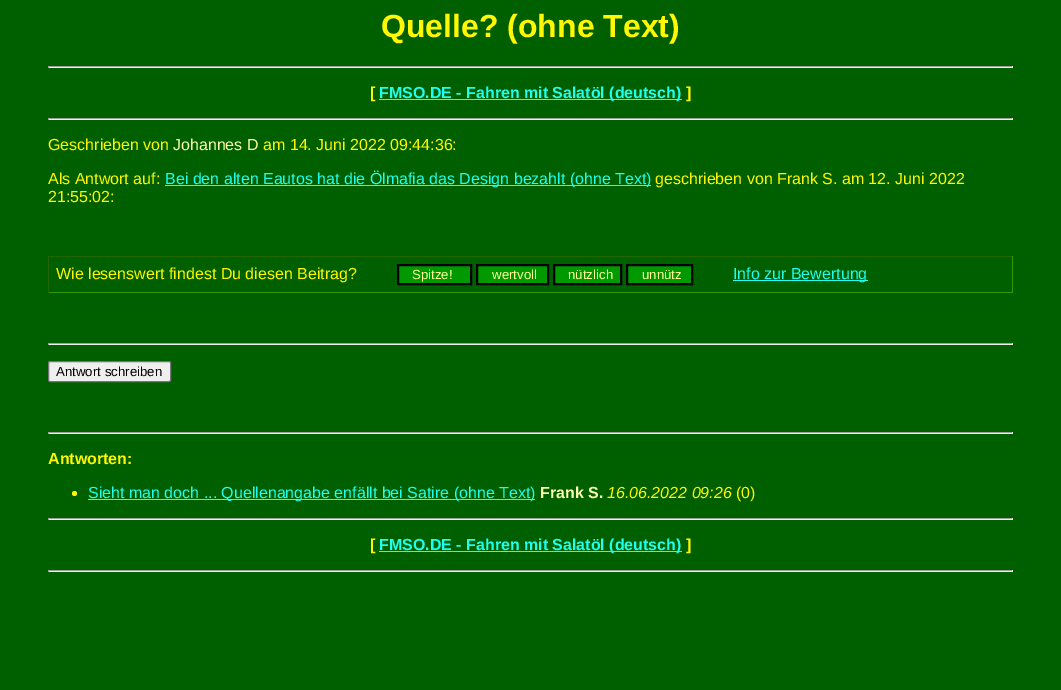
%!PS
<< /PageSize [1061 690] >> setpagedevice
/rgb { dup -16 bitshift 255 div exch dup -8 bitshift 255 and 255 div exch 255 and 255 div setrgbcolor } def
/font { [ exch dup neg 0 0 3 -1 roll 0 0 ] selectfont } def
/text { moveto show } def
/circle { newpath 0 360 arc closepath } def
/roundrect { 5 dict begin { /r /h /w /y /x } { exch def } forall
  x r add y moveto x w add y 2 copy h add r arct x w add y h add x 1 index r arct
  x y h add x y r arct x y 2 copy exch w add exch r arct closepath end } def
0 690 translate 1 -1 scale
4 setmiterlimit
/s1 { /LiberationSans-Bold 32 font 16#FFF800 rgb } def
/s2 { /LiberationSans-Bold 16 font 16#FFF800 rgb } def
/s3 { /LiberationSans-Bold 16 font 16#20FFEF rgb } def
/s4 { /LiberationSans-Regular 16 font 16#FFF800 rgb } def
/s5 { /LiberationSans-Regular 16 font 16#FFFFAA rgb } def
/s6 { /LiberationSans-Regular 16 font 16#20FFEF rgb } def
/s7 { /LiberationSans-Regular 13.25 font 16#FFFF99 rgb } def
/s8 { /LiberationSans-Regular 13.25 font 16#000000 rgb } def
/s9 { /LiberationSans-Bold 16 font 16#FFFFAA rgb } def
/s10 { /LiberationSans-Italic 16 font 16#FFF800 rgb } def
16#006000 rgb
0 0 1061 690 rectfill
s1
(Quelle? \(ohne Text\)) 381 37 text
16#9F9F9F rgb
48 66 965 1 rectfill
16#EEEEEE rgb
1012 66 1 2 rectfill
48 67 965 1 rectfill
16#9F9F9F rgb
48 66 1 2 rectfill
s2
([) 370 98 text
16#20FFEF rgb
379 99 303 1 rectfill
(FMSO.DE - Fahren mit Salatöl \(deutsch\)) 379 98 text
s2
(]) 686 98 text
16#9F9F9F rgb
48 118 965 1 rectfill
16#EEEEEE rgb
1012 118 1 2 rectfill
48 119 965 1 rectfill
16#9F9F9F rgb
48 118 1 2 rectfill
s4
(Geschrieben von) 48 150 text
s5
(Johannes D) 173 150 text
s4
(am 14. Juni 2022 09:44:36:) 263 150 text
(Als Antwort auf:) 48 184 text
16#20FFEF rgb
165 185 486 1 rectfill
(Bei den alten Eautos hat die Ölmafia das Design bezahlt \(ohne Text\)) 165 184 text
s4
(geschrieben von Frank S. am 12. Juni 2022) 655 184 text
(21:55:02:) 48 202 text
16#226600 rgb
48 256 965 1 rectfill
16#339900 rgb
1012 256 1 37 rectfill
48 292 965 1 rectfill
16#226600 rgb
48 256 1 37 rectfill
s4
(Wie lesenswert findest Du diesen Beitrag?) 56 279 text
16#009900 rgb
398 265 moveto 471 265 lineto 471 284 lineto 398 284 lineto closepath gsave fill grestore
16#000000 rgb
2 setlinewidth
stroke
s7
(Spitze!) 412 279 text
16#009900 rgb
477 265 moveto 548 265 lineto 548 284 lineto 477 284 lineto closepath gsave fill grestore
16#000000 rgb
stroke
s7
(wertvoll) 492 279 text
16#009900 rgb
554 265 moveto 621 265 lineto 621 284 lineto 554 284 lineto closepath gsave fill grestore
16#000000 rgb
stroke
s7
(nützlich) 568 279 text
16#009900 rgb
627 265 moveto 692 265 lineto 692 284 lineto 627 284 lineto closepath gsave fill grestore
16#000000 rgb
stroke
s7
(unnütz) 642 279 text
16#20FFEF rgb
733 280 135 1 rectfill
s6
(Info zur Bewertung) 733 279 text
16#9F9F9F rgb
48 343 965 1 rectfill
16#EEEEEE rgb
1012 343 1 2 rectfill
48 344 965 1 rectfill
16#9F9F9F rgb
48 343 1 2 rectfill
16#EFEFEF rgb
48.5 361.5 122 20 1.5 roundrect gsave fill grestore
16#767676 rgb
1 setlinewidth
stroke
s8
(Antwort schreiben) 56 376 text
16#9F9F9F rgb
48 432 965 1 rectfill
16#EEEEEE rgb
1012 432 1 2 rectfill
48 433 965 1 rectfill
16#9F9F9F rgb
48 432 1 2 rectfill
s2
(Antworten:) 48 464 text
74.5 493.5 2.5 circle fill
16#20FFEF rgb
88 499 447 1 rectfill
s6
(Sieht man doch ... Quellenangabe enfällt bei Satire \(ohne Text\)) 88 498 text
s9
(Frank S.) 540 498 text
s10
(16.06.2022 09:26) 607 498 text
s4
(\(0\)) 736 498 text
16#9F9F9F rgb
48 518 965 1 rectfill
16#EEEEEE rgb
1012 518 1 2 rectfill
48 519 965 1 rectfill
16#9F9F9F rgb
48 518 1 2 rectfill
s2
([) 370 550 text
16#20FFEF rgb
379 551 303 1 rectfill
(FMSO.DE - Fahren mit Salatöl \(deutsch\)) 379 550 text
s2
(]) 686 550 text
16#9F9F9F rgb
48 570 965 1 rectfill
16#EEEEEE rgb
1012 570 1 2 rectfill
48 571 965 1 rectfill
16#9F9F9F rgb
48 570 1 2 rectfill
showpage
